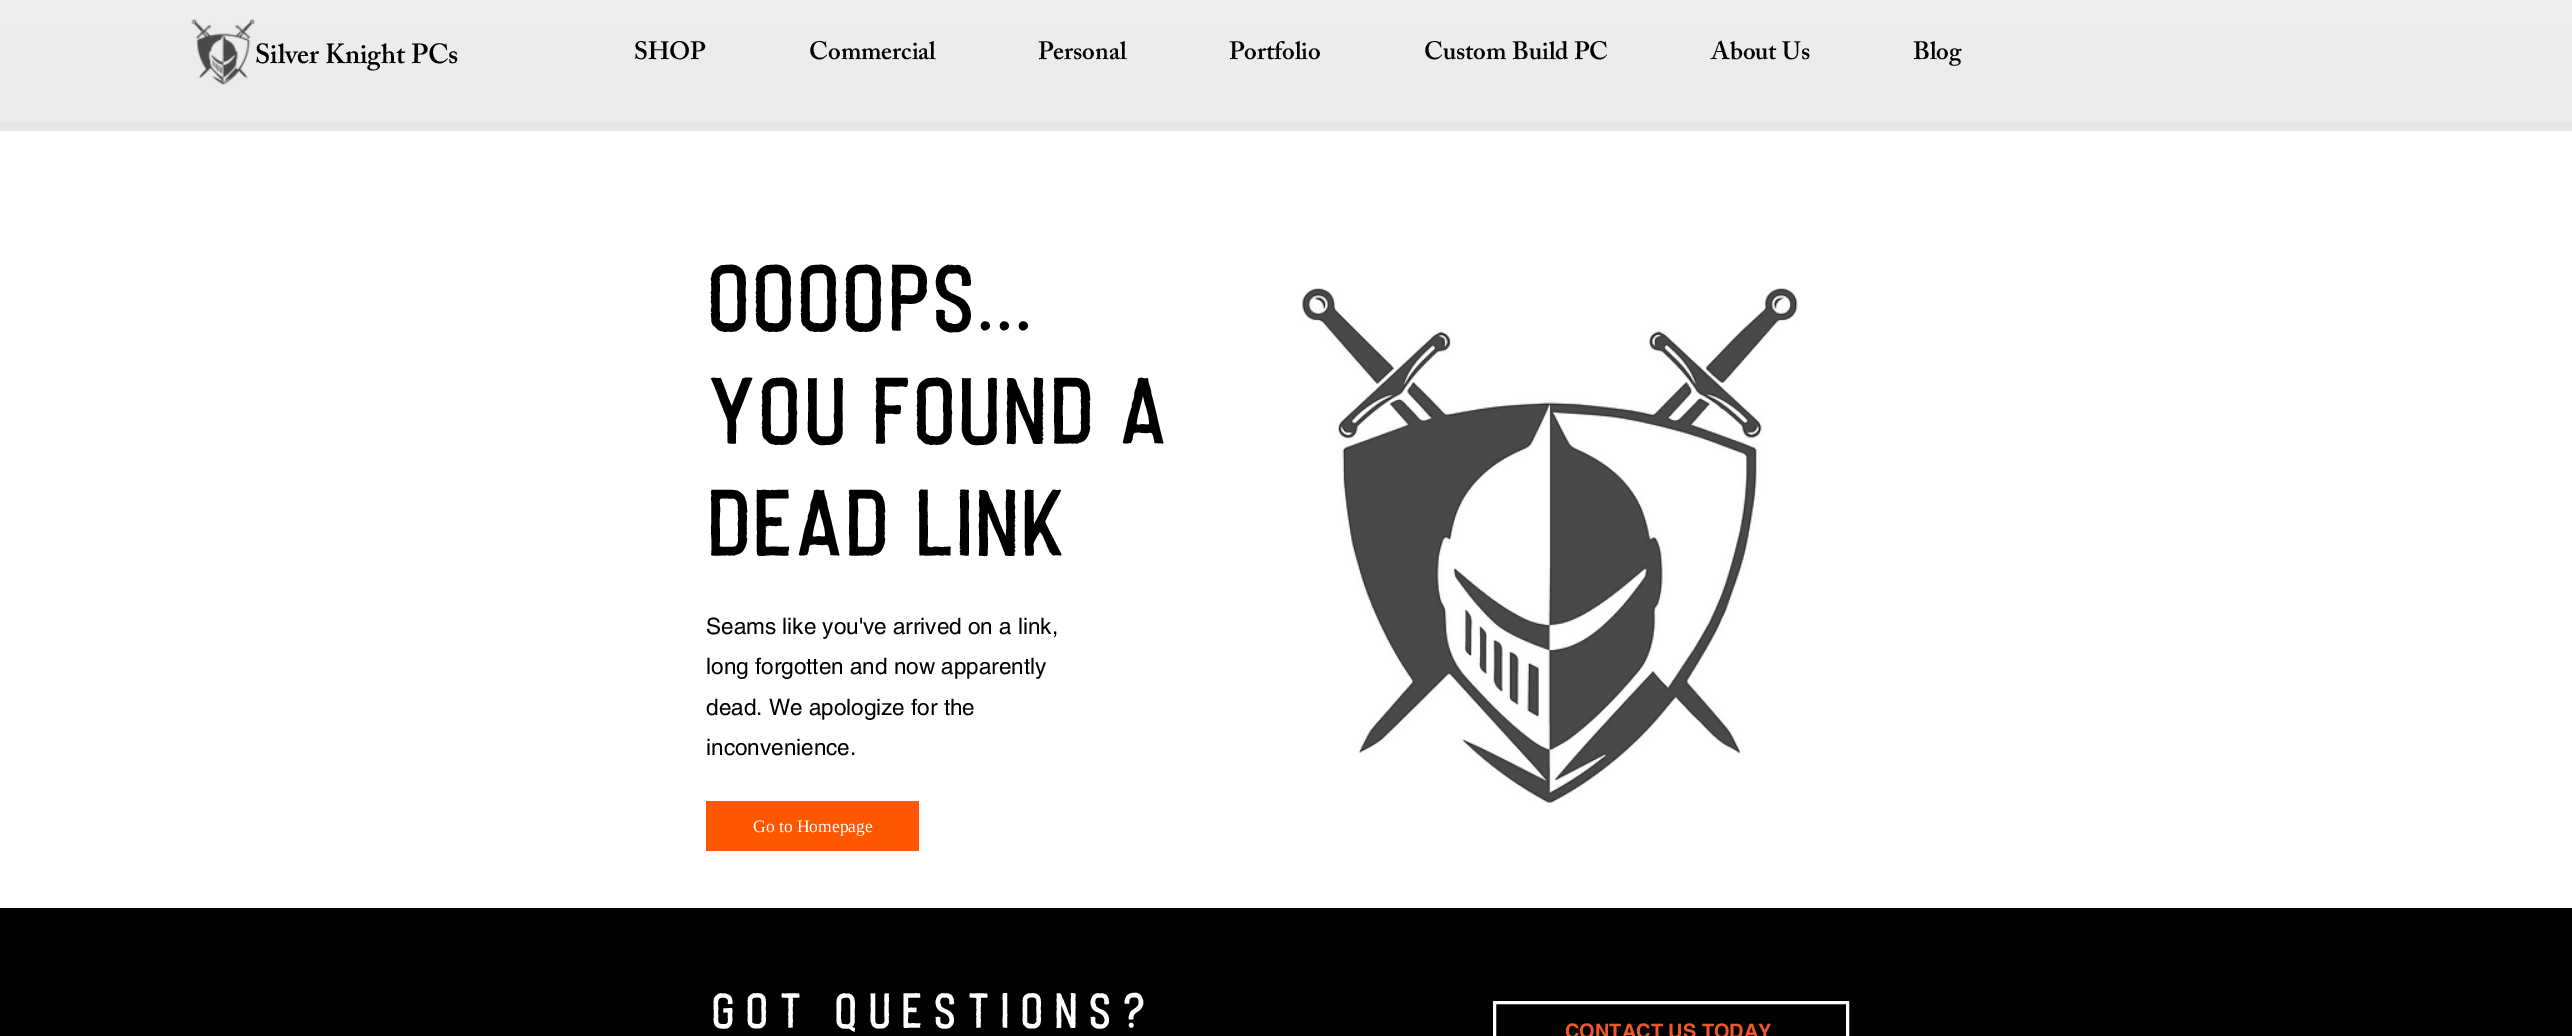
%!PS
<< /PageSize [2572 1036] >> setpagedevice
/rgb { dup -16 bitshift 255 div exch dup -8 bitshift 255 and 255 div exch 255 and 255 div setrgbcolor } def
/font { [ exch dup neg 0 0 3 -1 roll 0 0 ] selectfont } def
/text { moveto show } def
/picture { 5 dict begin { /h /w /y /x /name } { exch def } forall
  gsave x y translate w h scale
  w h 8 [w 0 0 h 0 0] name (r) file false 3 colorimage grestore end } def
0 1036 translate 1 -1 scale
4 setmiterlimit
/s1 { /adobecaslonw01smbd-SemiBold 27.5 font 16#000000 rgb } def
/s2 { /adobecaslonw01smbd-SemiBold 25 font 16#000000 rgb } def
/s3 { /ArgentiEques-Regular 95 font 16#000000 rgb } def
/s4 { /helvetica-Regular 22.5 font 16#000000 rgb } def
/s5 { /LiberationSerif-Regular 17.5 font 16#FFFFFF rgb } def
/s6 { /helvetica-Bold 20 font 16#ED5829 rgb } def
16#FFFFFF rgb
0 0 2572 1036 rectfill
16#E8E6E6 rgb
0 0 2572 131 rectfill
(pic1.raw) 0 0 2572 122 picture
(pic2.raw) 191 18 64 67 picture
s1
(Silver Knight PCs) 255 63 text
s2
(SHOP) 634 59 text
(Commercial) 809 59 text
(Personal) 1038 59 text
(Portfolio) 1229 59 text
(Custom Build PC) 1424 59 text
(About Us) 1711 59 text
(Blog) 1913 59 text
s3
(Oooops...) 706 331 text
(You Found A) 706 444 text
(Dead Link) 706 556 text
(pic3.raw) 1302 288 496 515 picture
s4
(Seams like you've arrived on a link,) 706 634 text
(long forgotten and now apparently) 706 674 text
(dead. We apologize for the) 706 715 text
(inconvenience.) 706 755 text
16#FF5700 rgb
706 801 213 50 rectfill
s5
(Go to Homepage) 753 832 text
16#000000 rgb
0 908 2572 128 rectfill
/ArgentiEques-Regular 50 font
16#FFFFFF rgb
711 1028 moveto 10 0 (GOT QUESTIONS?) ashow
3 setlinewidth
1494.5 1002.5 353 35 rectstroke
s6
(CONTACT US TODAY) 1565 1038 text
showpage
